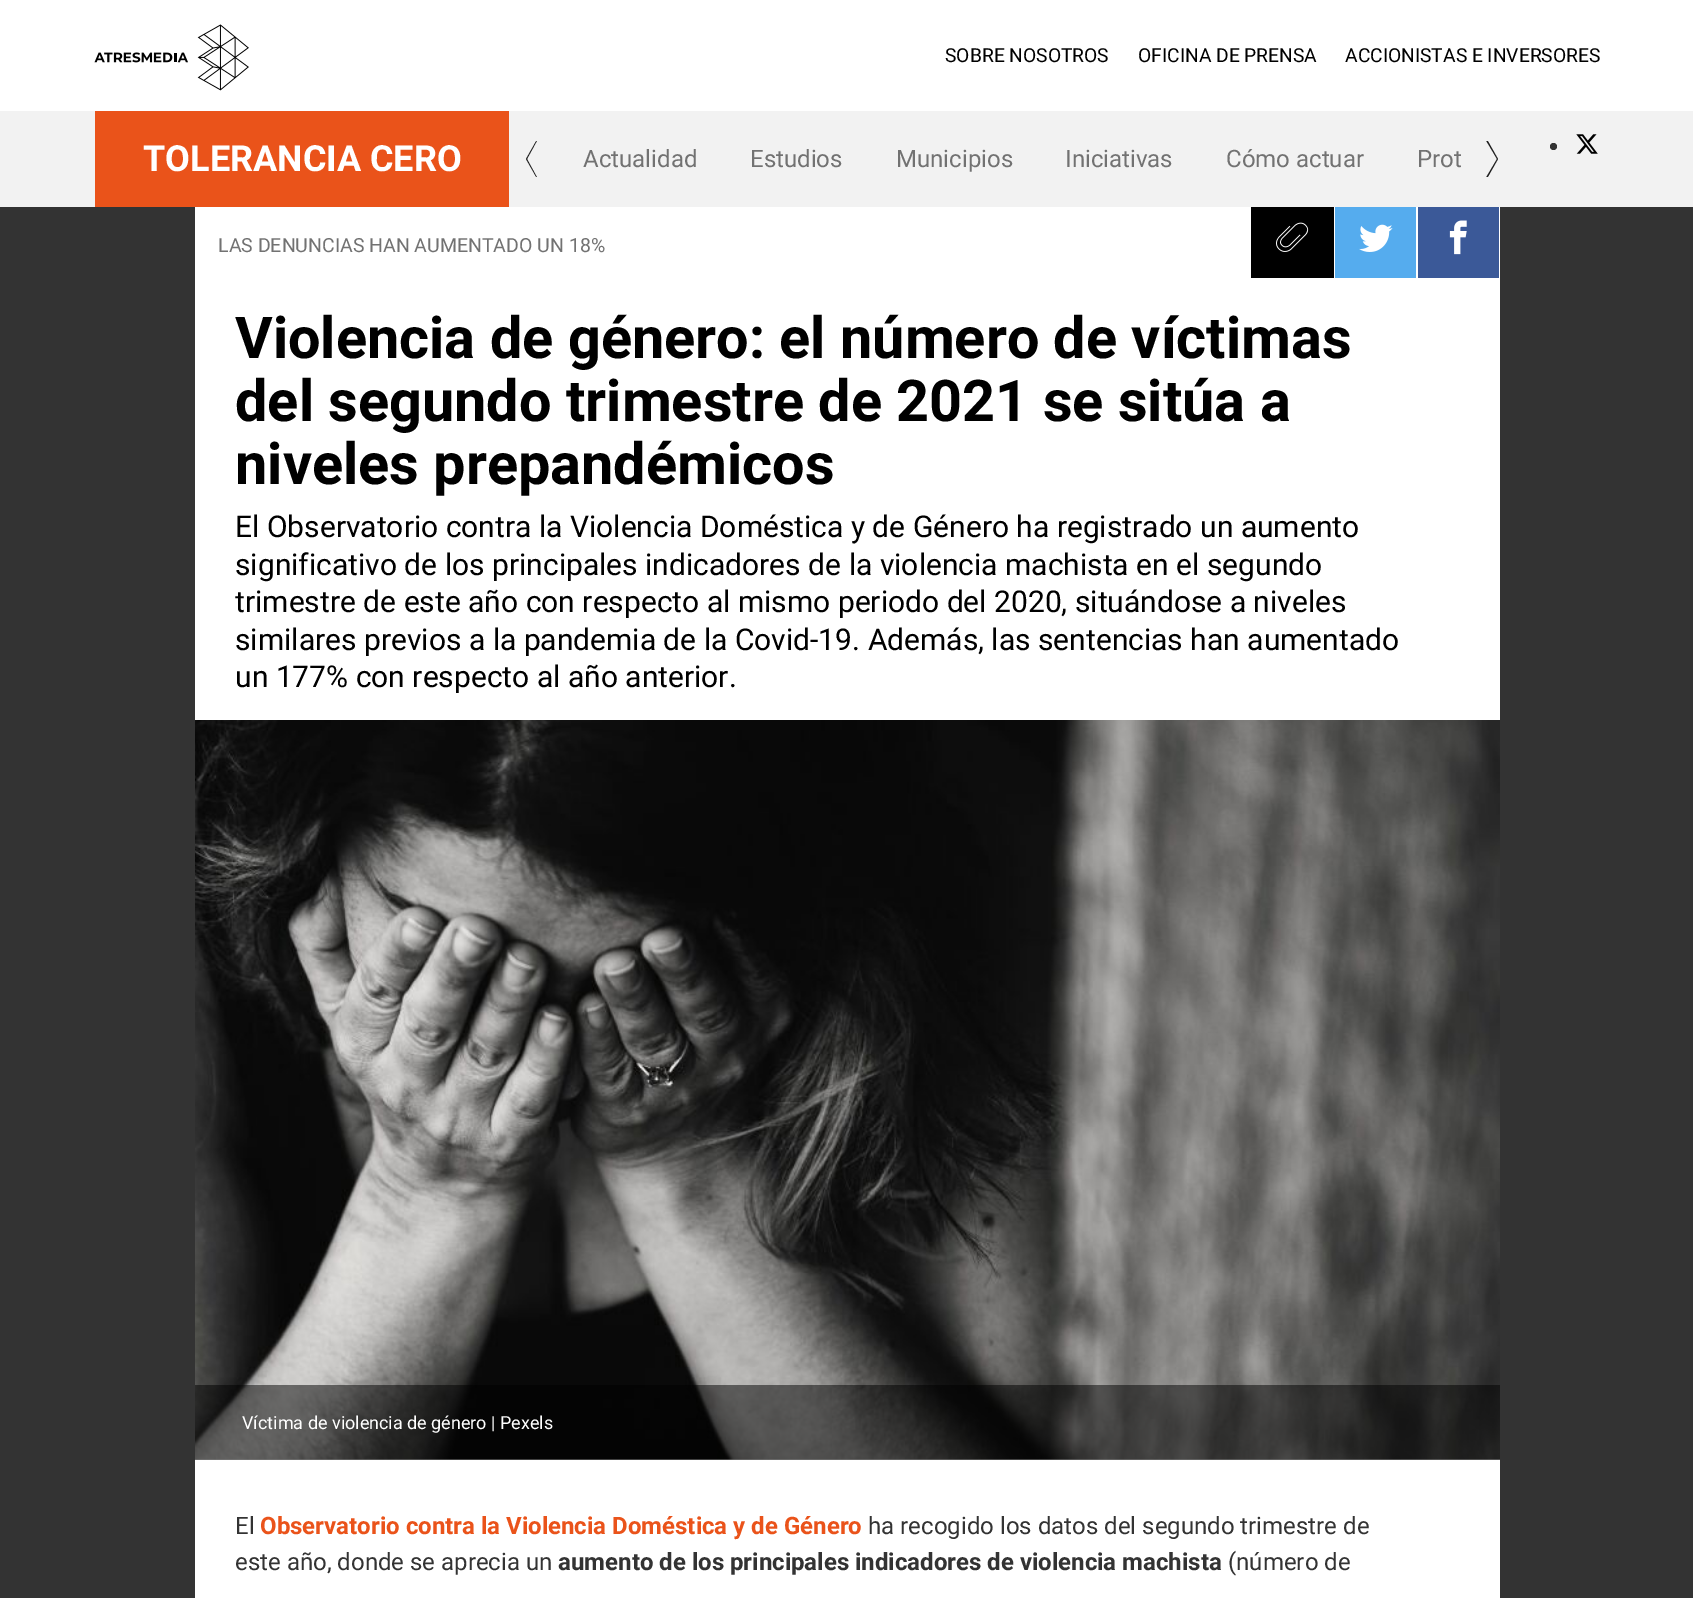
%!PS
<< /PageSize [1693 1598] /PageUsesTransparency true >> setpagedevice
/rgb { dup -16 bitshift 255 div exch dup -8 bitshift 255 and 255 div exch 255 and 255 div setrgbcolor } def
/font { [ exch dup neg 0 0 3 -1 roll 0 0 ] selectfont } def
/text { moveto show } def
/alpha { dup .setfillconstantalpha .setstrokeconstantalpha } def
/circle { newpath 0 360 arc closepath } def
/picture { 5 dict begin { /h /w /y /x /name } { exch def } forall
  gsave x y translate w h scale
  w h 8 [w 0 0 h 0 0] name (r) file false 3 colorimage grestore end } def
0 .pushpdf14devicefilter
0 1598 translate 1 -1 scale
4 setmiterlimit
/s1 { /Roboto-Regular 19.25 font 16#000000 rgb } def
/s2 { /Roboto-Bold 36 font 16#FFFFFF rgb } def
/s3 { /Roboto-Regular 24 font 16#727272 rgb } def
/s4 { /Roboto-Regular 19.5 font 16#727272 rgb } def
/s5 { /Roboto-Bold 57.6 font 16#000000 rgb } def
/s6 { /Roboto-Regular 30 font 16#000000 rgb } def
/s7 { /Roboto-Regular 18 font 16#FFFFFF rgb } def
/s8 { /Roboto-Regular 24 font 16#333333 rgb } def
/s9 { /Roboto-Bold 24 font 16#EA531A rgb } def
/s10 { /Roboto-Bold 24 font 16#333333 rgb } def
16#333333 rgb
0 0 1693 1598 rectfill
16#FFFFFF rgb
0 0 1693 111 rectfill
(pic1.raw) 94 24 155 67 picture
s1
(SOBRE NOSOTROS) 945 62 text
(OFICINA DE PRENSA) 1138 62 text
(ACCIONISTAS E INVERSORES) 1345 62 text
16#F2F2F2 rgb
0 111 1693 96 rectfill
16#EA531A rgb
95 111 414 96 rectfill
s2
(TOLERANCIA CERO) 143 171 text
gsave
509 141 1006 36 rectclip
16#1F1F1F rgb
539 136 moveto 539 137 lineto 527 159 lineto 539 181 lineto 539 182 lineto 526 159 lineto closepath fill
grestore
s3
(Actualidad) 583 167 text
(Estudios) 750 167 text
(Municipios) 896 167 text
(Iniciativas) 1065 167 text
(Cómo actuar) 1226 167 text
(Prot) 1417 167 text
gsave
509 141 1006 36 rectclip
16#1F1F1F rgb
1485 182 moveto 1484 181 lineto 1497 159 lineto 1484 137 lineto 1485 136 lineto 1498 159 lineto closepath fill
grestore
16#333333 rgb
1553.5 146.5 3.5 circle fill
(pic2.raw) 1576 134 22 20 picture
16#FFFFFF rgb
195 207 1305 1391 rectfill
s4
(LAS DENUNCIAS HAN AUMENTADO UN 18%) 218 252 text
16#000000 rgb
1251 207 83 71 rectfill
(pic3.raw) 1276 222 33 30 picture
16#55ACEE rgb
1335 207 81 71 rectfill
(pic4.raw) 1359 224 34 28 picture
16#3B5998 rgb
1418 207 81 71 rectfill
(pic5.raw) 1449 220 18 35 picture
s5
(Violencia de género: el número de víctimas) 235 358 text
(del segundo trimestre de 2021 se sitúa a) 235 421 text
(niveles prepandémicos) 235 484 text
s6
(El Observatorio contra la Violencia Doméstica y de Género ha registrado un aumento) 235 537 text
(significativo de los principales indicadores de la violencia machista en el segundo) 235 575 text
(trimestre de este año con respecto al mismo periodo del 2020, situándose a niveles) 235 612 text
(similares previos a la pandemia de la Covid-19. Además, las sentencias han aumentado) 235 650 text
(un 177% con respecto al año anterior.) 235 687 text
(pic6.raw) 195 720 1305 740 picture
0.5 alpha
195 1385 1305 75 rectfill
1 alpha
s7
(Víctima de violencia de género | Pexels) 242 1429 text
s8
(El) 235 1534 text
s9
(Observatorio contra la Violencia Doméstica y de Género) 260 1534 text
s8
(ha recogido los datos del segundo trimestre de) 868 1534 text
(este año, donde se aprecia un) 235 1570 text
s10
(aumento de los principales indicadores de violencia machista) 558 1570 text
s8
(\(número de) 1228 1570 text
.poppdf14devicefilter showpage
